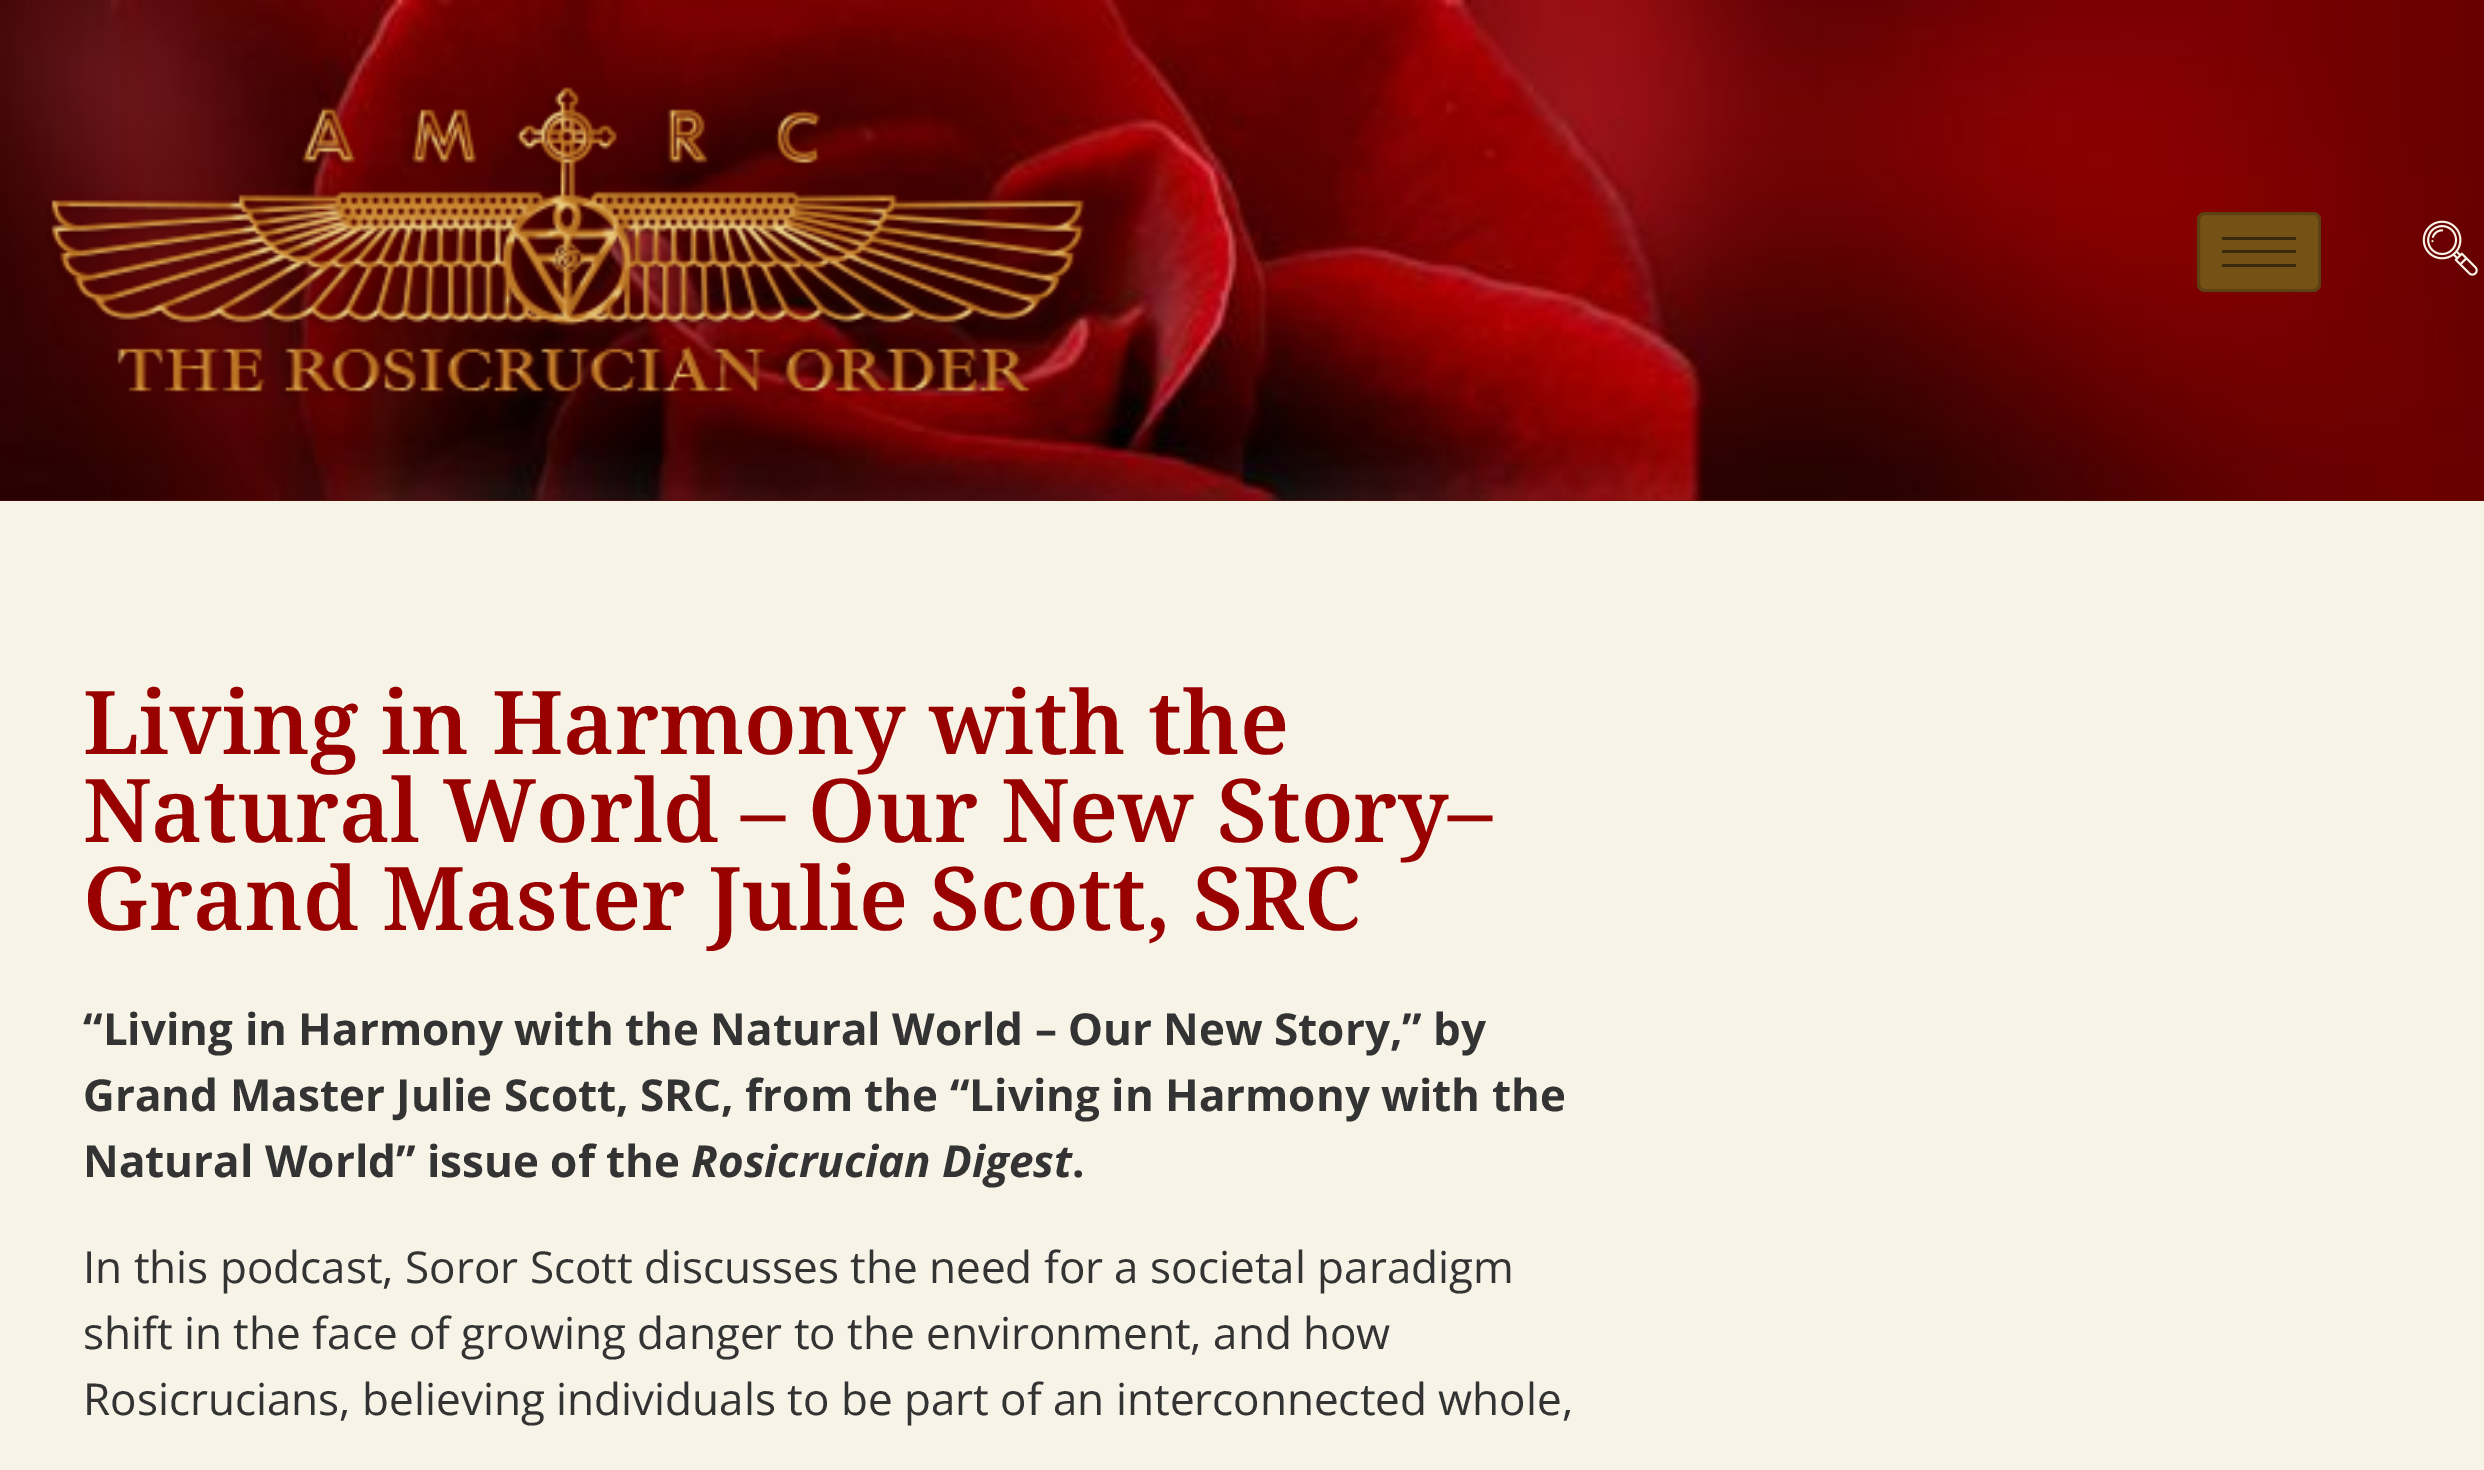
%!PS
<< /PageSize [2484 1470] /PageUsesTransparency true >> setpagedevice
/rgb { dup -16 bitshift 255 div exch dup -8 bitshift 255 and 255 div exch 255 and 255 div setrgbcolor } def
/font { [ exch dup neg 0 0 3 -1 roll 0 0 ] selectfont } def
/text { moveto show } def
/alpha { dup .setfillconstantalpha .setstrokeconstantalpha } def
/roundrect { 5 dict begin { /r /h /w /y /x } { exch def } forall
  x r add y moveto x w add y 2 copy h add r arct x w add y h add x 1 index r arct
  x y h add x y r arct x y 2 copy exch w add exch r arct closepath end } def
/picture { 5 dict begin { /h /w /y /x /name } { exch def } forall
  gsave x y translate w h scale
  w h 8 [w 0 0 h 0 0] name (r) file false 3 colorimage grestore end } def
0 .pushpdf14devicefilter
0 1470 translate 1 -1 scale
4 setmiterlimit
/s1 { /NotoSerif-SemiBold 88 font 16#990000 rgb } def
/s2 { /OpenSans-Bold 44 font 16#333333 rgb } def
/s3 { /OpenSans-BoldItalic 44 font 16#333333 rgb } def
/s4 { /OpenSans-Regular 44 font 16#333333 rgb } def
16#F8F3E7 rgb
0 0 2484 1470 rectfill
16#601209 rgb
0 500 2484 1 rectfill
(pic1.raw) 0 0 2484 501 picture
(pic2.raw) 46 87 1041 312 picture
16#755116 rgb
2197 212 124 80 8 roundrect fill
0.2 alpha
16#000000 rgb
3 setlinewidth
2198.5 213.5 121 77 6.5 roundrect stroke
1 alpha
16#3B290B rgb
2222 237 74 3 rectfill
2222 250 74 3 rectfill
2222 264 74 3 rectfill
(pic3.raw) 2422 220 56 56 picture
s1
(Living in Harmony with the) 83 754 text
(Natural World – Our New Story–) 83 842 text
(Grand Master Julie Scott, SRC) 83 930 text
s2
(“Living in Harmony with the Natural World – Our New Story,” by) 83 1045 text
(Grand Master Julie Scott, SRC, from the “Living in Harmony with the) 83 1111 text
(Natural World” issue of the) 83 1177 text
s3
(Rosicrucian Digest) 691 1177 text
s2
(.) 1072 1177 text
s4
(In this podcast, Soror Scott discusses the need for a societal paradigm) 83 1283 text
(shift in the face of growing danger to the environment, and how) 83 1349 text
(Rosicrucians, believing individuals to be part of an interconnected whole,) 83 1415 text
.poppdf14devicefilter showpage
